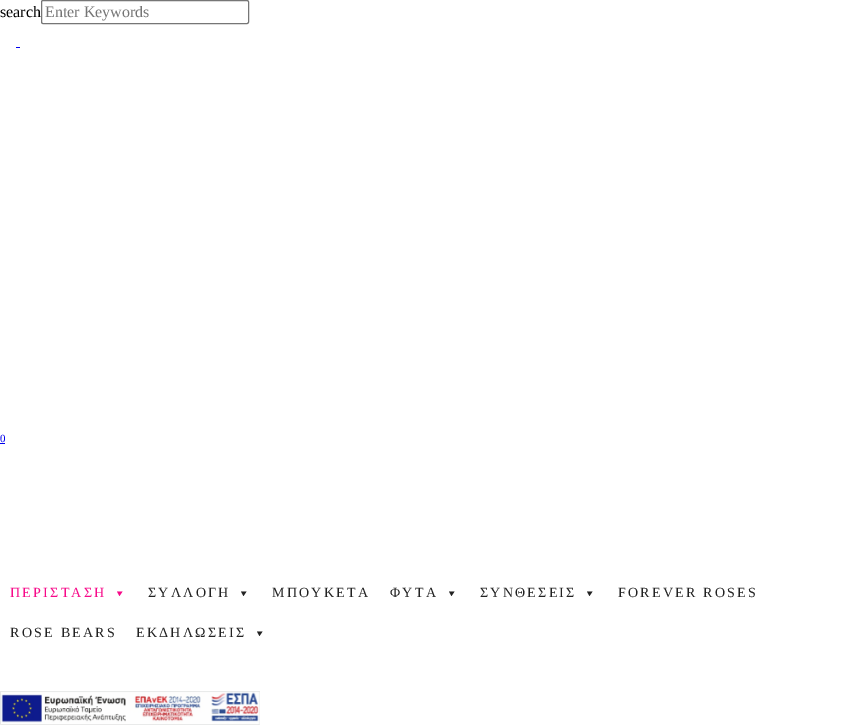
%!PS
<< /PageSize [849 725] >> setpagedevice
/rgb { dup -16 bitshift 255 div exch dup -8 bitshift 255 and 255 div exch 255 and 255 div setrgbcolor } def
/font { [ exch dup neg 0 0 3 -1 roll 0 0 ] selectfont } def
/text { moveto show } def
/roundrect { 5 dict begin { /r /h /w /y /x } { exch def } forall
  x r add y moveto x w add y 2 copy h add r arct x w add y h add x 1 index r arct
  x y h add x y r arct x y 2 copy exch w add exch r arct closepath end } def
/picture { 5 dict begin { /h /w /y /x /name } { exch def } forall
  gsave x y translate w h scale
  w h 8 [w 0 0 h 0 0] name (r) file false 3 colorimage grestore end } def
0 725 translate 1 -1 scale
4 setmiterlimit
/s1 { /LiberationSerif-Regular 16 font 16#000000 rgb } def
/s2 { /LiberationSerif-Regular 16 font 16#757575 rgb } def
/s3 { /LiberationSerif-Regular 11 font 16#0000EE rgb } def
16#FFFFFF rgb
0 0 849 725 rectfill
s1
(search) 0 17 text
16#767676 rgb
41.5 0.5 207 23 1.5 roundrect stroke
s2
(Enter Keywords) 45 17 text
16#0000EE rgb
16 47 4 1 rectfill
s3
(0) 0 442 text
0 443 5 1 rectfill
/LiberationSerif-Regular 14 font
16#F70989 rgb
10 597 moveto 2.25 0 (ΠΕΡΙΣΤΑΣΗ) ashow
122.5 591.5 moveto 119.5 596 lineto 117 591.5 lineto closepath fill
16#222222 rgb
148 597 moveto 2.25 0 (ΣΥΛΛΟΓΗ) ashow
246.5 591.5 moveto 243.5 596 lineto 241 591.5 lineto closepath fill
272 597 moveto 2.25 0 (ΜΠΟΥΚΕΤΑ) ashow
390 597 moveto 2.25 0 (ΦΥΤΑ) ashow
454.5 591.5 moveto 451.5 596 lineto 449 591.5 lineto closepath fill
480 597 moveto 2.25 0 (ΣΥΝΘΕΣΕΙΣ) ashow
592.5 591.5 moveto 589.5 596 lineto 587 591.5 lineto closepath fill
618 597 moveto 2.25 0 (FOREVER ROSES) ashow
10 637 moveto 2.25 0 (ROSE BEARS) ashow
136 637 moveto 2.25 0 (ΕΚΔΗΛΩΣΕΙΣ) ashow
262.5 631.5 moveto 259.5 636 lineto 257 631.5 lineto closepath fill
(pic1.raw) 0 691 260 34 picture
showpage
